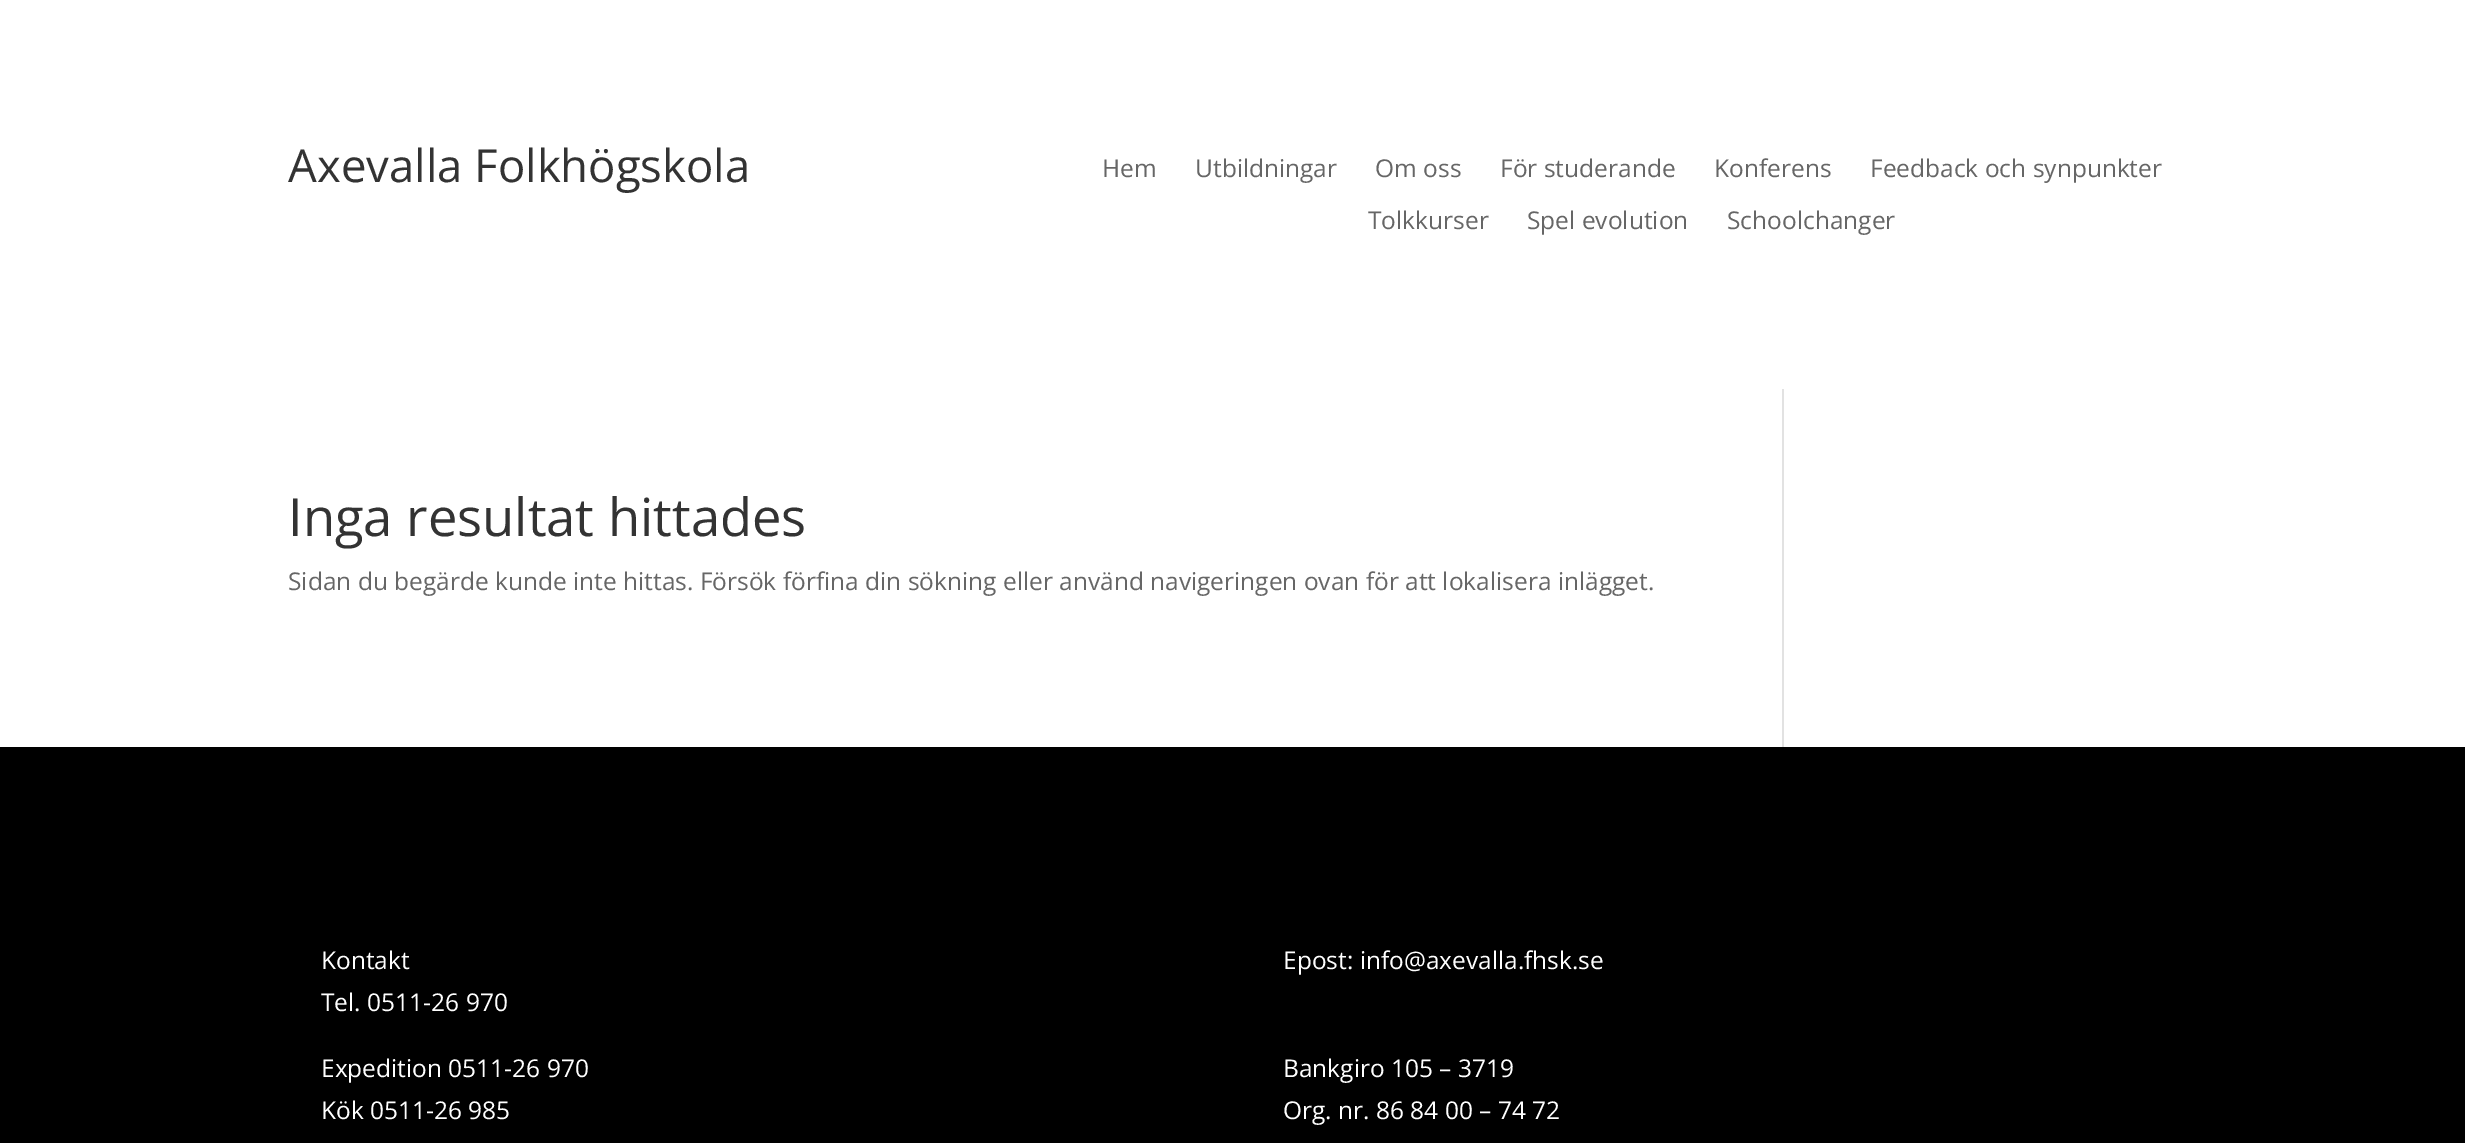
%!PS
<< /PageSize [2465 1143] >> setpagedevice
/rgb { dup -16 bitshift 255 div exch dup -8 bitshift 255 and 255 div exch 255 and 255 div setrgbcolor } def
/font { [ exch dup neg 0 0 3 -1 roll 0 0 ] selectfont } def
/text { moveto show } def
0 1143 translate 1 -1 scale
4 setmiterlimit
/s1 { /OpenSans-Regular 45.5 font 16#333333 rgb } def
/s2 { /OpenSans-Regular 24.5 font 16#666666 rgb } def
/s3 { /OpenSans-Regular 52.5 font 16#333333 rgb } def
/s4 { /OpenSans-Regular 24.5 font 16#FFFFFF rgb } def
16#FFFFFF rgb
0 0 2465 1143 rectfill
s1
(Axevalla Folkhögskola) 288 182 text
s2
(Hem) 1102 177 text
(Utbildningar) 1195 177 text
(Om oss) 1375 177 text
(För studerande) 1500 177 text
(Konferens) 1714 177 text
(Feedback och synpunkter) 1870 177 text
(Tolkkurser) 1368 229 text
(Spel evolution) 1527 229 text
(Schoolchanger) 1727 229 text
s3
(Inga resultat hittades) 288 536 text
s2
(Sidan du begärde kunde inte hittas. Försök förfina din sökning eller använd navigeringen ovan för att lokalisera inlägget.) 288 590 text
16#E2E2E2 rgb
1782 389 2 358 rectfill
16#000000 rgb
0 747 2465 396 rectfill
s4
(Kontakt) 321 969 text
(Tel. 0511-26 970) 321 1011 text
(Expedition 0511-26 970) 321 1077 text
(Kök 0511-26 985) 321 1119 text
(Epost: info@axevalla.fhsk.se) 1283 969 text
(Bankgiro 105 – 3719) 1283 1077 text
(Org. nr. 86 84 00 – 74 72) 1283 1119 text
showpage
